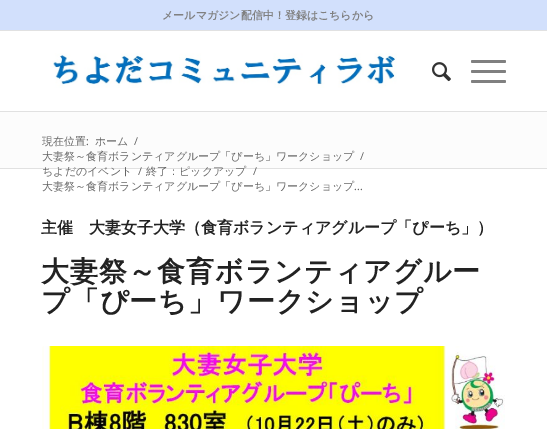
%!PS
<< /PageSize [547 429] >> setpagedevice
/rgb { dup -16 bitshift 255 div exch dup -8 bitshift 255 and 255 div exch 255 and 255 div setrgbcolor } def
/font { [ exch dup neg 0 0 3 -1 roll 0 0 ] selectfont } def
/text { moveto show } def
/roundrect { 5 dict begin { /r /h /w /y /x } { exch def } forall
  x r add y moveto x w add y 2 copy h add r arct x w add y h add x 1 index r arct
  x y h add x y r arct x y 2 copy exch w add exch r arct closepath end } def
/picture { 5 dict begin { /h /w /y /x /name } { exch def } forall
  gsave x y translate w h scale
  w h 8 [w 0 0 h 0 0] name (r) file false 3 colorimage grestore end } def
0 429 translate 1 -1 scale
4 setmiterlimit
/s1 { /WenQuanYiZenHei-Bold 11 font 16#808080 rgb } def
/s2 { /WenQuanYiZenHei-Medium 11 font 16#666666 rgb } def
/s3 { /OpenSans-Regular 11 font 16#666666 rgb } def
/s4 { /WenQuanYiZenHei-Bold 16 font 16#222222 rgb } def
16#FFFFFF rgb
0 0 547 429 rectfill
16#D2E0FC rgb
0 0 547 30 rectfill
16#E1E1E1 rgb
0 30 547 1 rectfill
s1
(メールマガジン配信中！登録はこちらから) 162 19 text
16#E1E1E1 rgb
0 111 547 1 rectfill
(pic1.raw) 50 53 347 35 picture
(pic2.raw) 432 62 19 20 picture
16#808080 rgb
471 70 35 3 1.5 roundrect fill
471 60 35 3 1.5 roundrect fill
471 80 35 3 1.5 roundrect fill
16#FCFCFC rgb
0 112 547 56 rectfill
s2
(現在位置) 42 145 text
s3
(:) 86 145 text
s2
(ホーム) 95 145 text
s3
(/) 134 145 text
s2
(大妻祭～食育ボランティアグループ「ぴーち」ワークショップ) 42 160 text
s3
(/) 360 160 text
16#E1E1E1 rgb
0 168 547 1 rectfill
s2
(ちよだのイベント) 42 175 text
s3
(/) 138 175 text
s2
(終了：ピックアップ) 146 175 text
s3
(/) 253 175 text
s2
(大妻祭～食育ボランティアグループ「ぴーち」ワークショップ) 42 190 text
s3
(...) 354 190 text
s4
(主催　大妻女子大学（食育ボランティアグループ「ぴーち」）) 41 233 text
/WenQuanYiZenHei-Bold 28 font
41 281 moveto 1 0 (大妻祭～食育ボランティアグルー) ashow
41 311 moveto 1 0 (プ「ぴーち」ワークショップ) ashow
(pic3.raw) 42 346 463 83 picture
showpage
